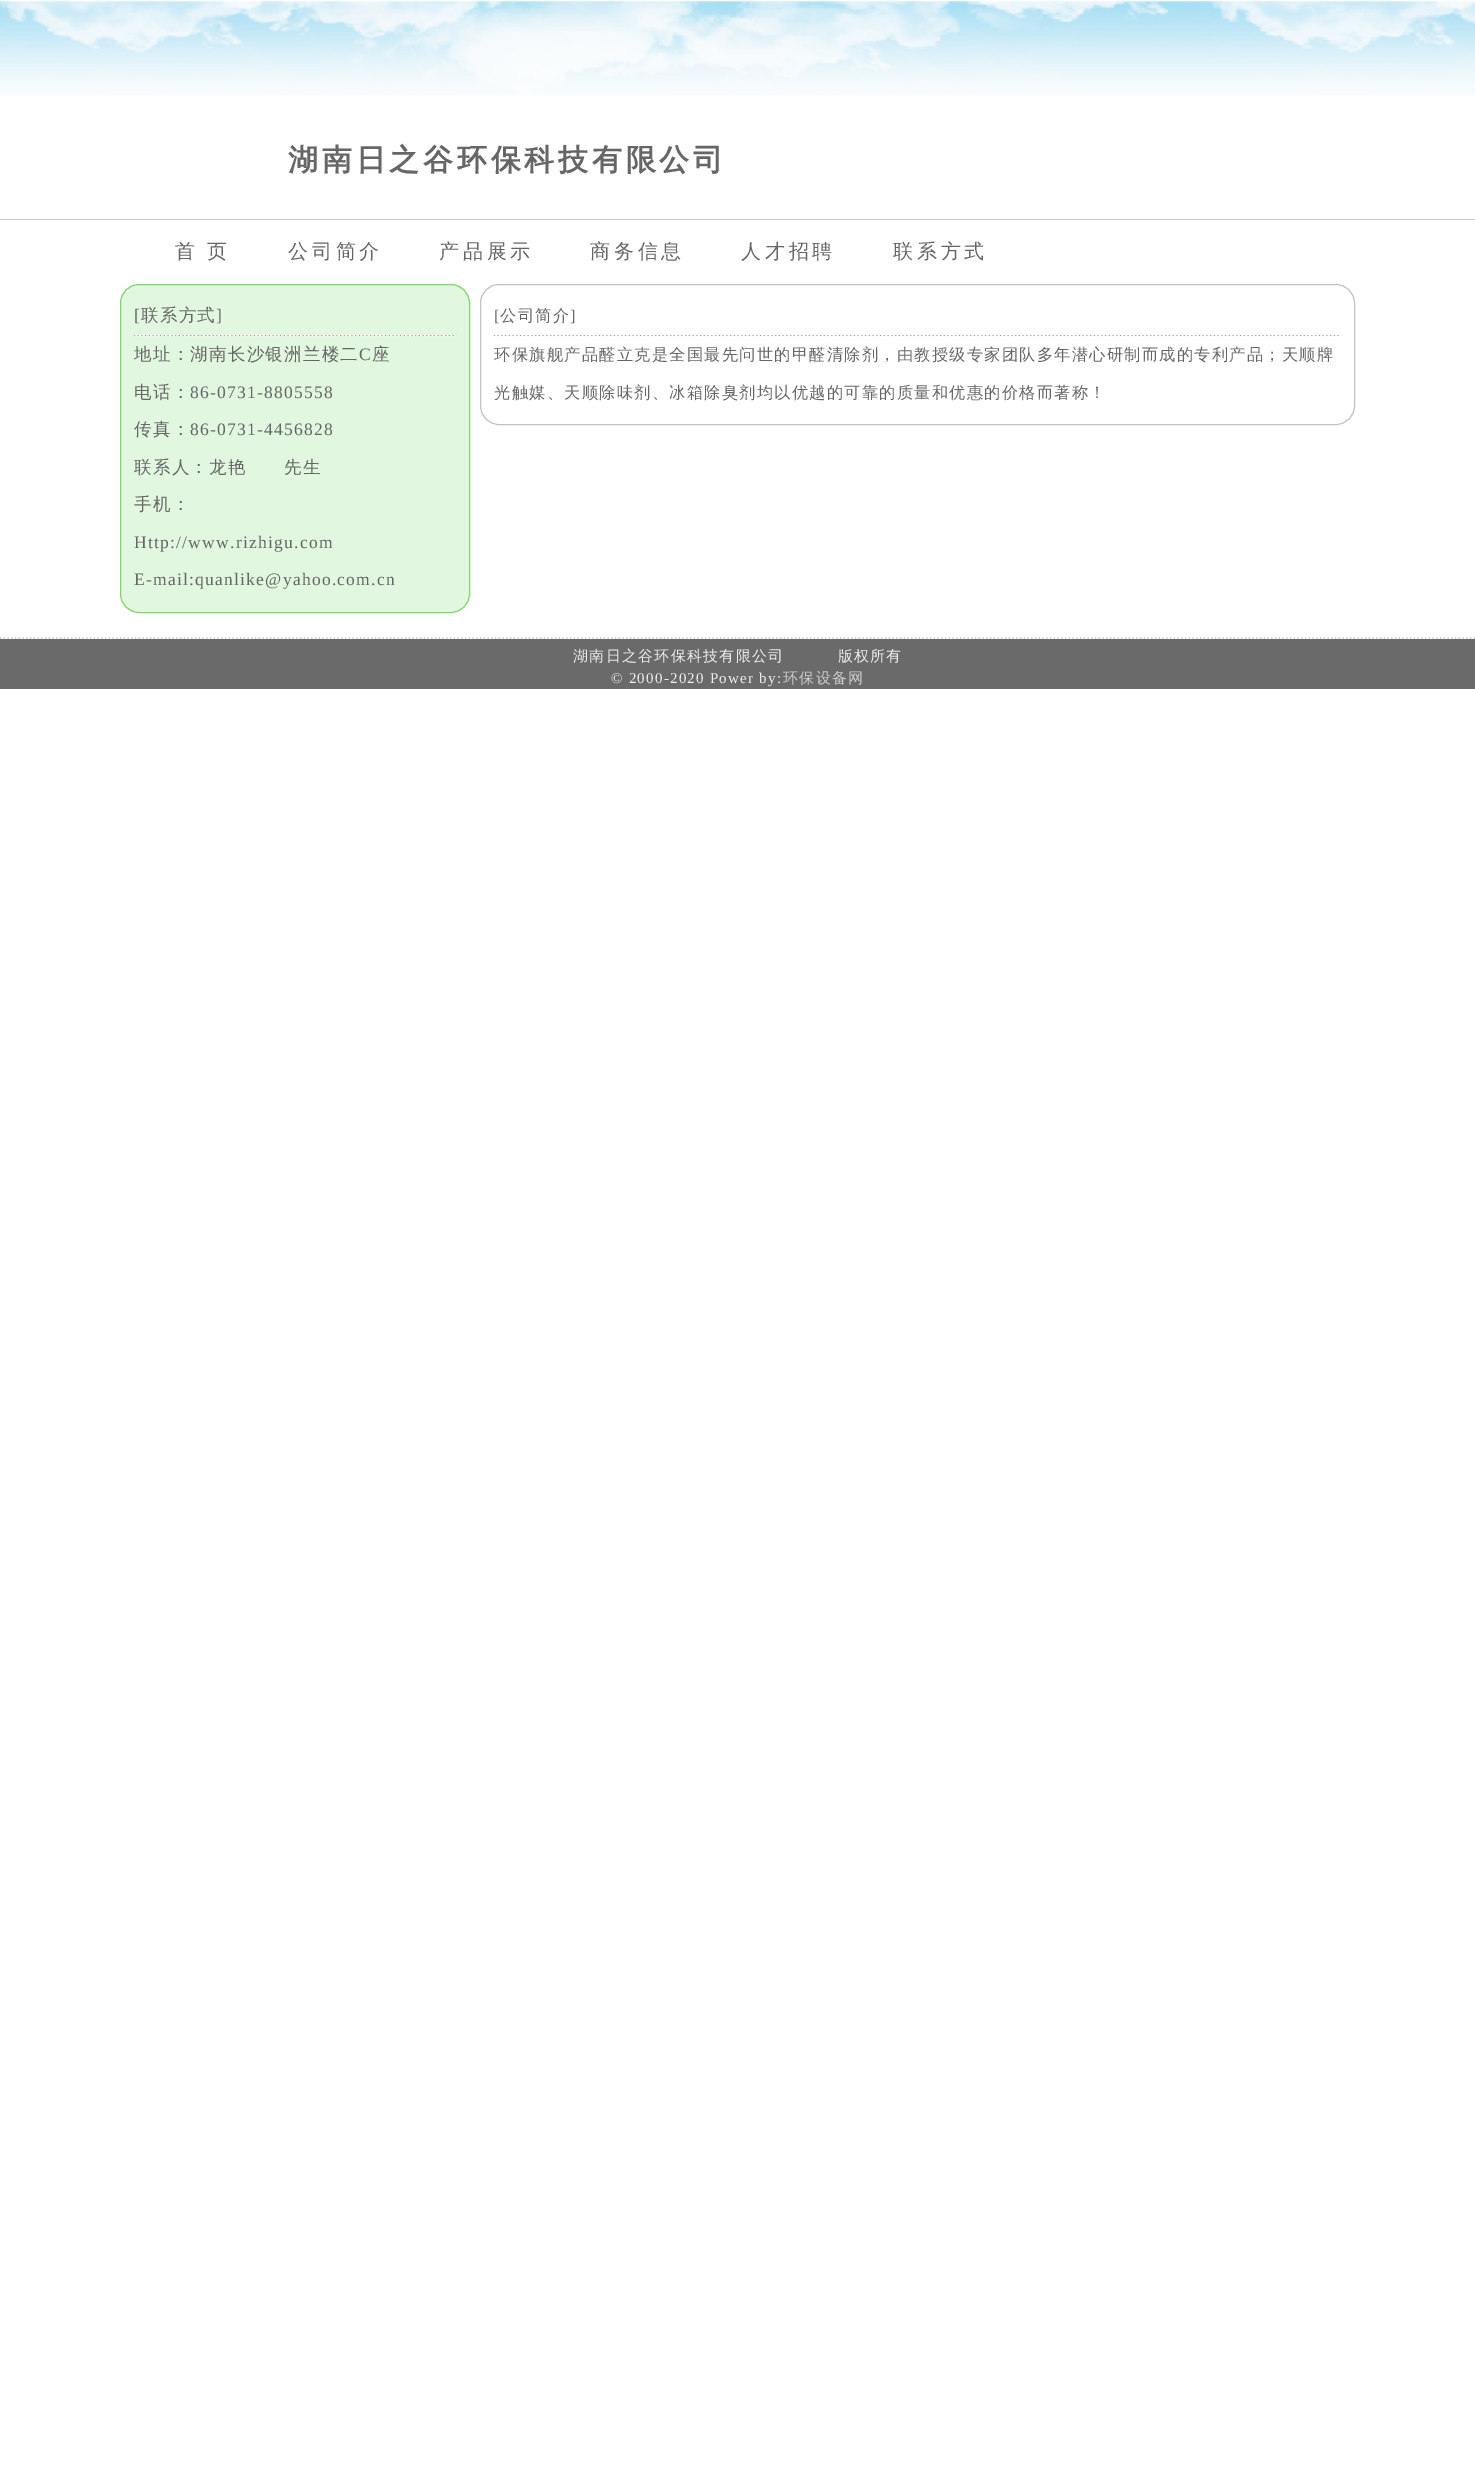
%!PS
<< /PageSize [1475 2476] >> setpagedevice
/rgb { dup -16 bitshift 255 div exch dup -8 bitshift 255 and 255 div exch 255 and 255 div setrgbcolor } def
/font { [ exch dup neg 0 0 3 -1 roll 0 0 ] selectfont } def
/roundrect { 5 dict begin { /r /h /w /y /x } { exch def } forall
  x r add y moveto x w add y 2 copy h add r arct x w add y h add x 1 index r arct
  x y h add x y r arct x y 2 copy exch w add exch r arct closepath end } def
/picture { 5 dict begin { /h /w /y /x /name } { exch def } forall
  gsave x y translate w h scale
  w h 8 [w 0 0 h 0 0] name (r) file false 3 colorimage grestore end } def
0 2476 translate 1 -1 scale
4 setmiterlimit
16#FFFFFF rgb
0 0 1475 2476 rectfill
(pic1.raw) 0 1 1475 95 picture
/WenQuanYiZenHei-Bold 30 font
16#666666 rgb
288 170 moveto 3.75 0 (湖南日之谷环保科技有限公司) ashow
16#CCCCCC rgb
0 219 1475 1 rectfill
/WenQuanYiZenHei-Medium 20 font
16#666666 rgb
175 258 moveto -1 0 32 3.75 0 (首 页) awidthshow
288 258 moveto 3.75 0 (公司简介) ashow
439 258 moveto 3.75 0 (产品展示) ashow
590 258 moveto 3.75 0 (商务信息) ashow
741 258 moveto 3.75 0 (人才招聘) ashow
893 258 moveto 3.75 0 (联系方式) ashow
16#E1F7E0 rgb
120.5 284.5 349 328 18.5 roundrect gsave fill grestore
16#7ED866 rgb
stroke
/LiberationSerif-Regular 17.5 font
16#666666 rgb
134 321 moveto 1.25 0 ([) ashow
/WenQuanYiZenHei-Medium 17.5 font
141 321 moveto 1.25 0 (联系方式) ashow
/LiberationSerif-Regular 17.5 font
216 321 moveto 1.25 0 (]) ashow
(pic2.raw) 133 335 324 2 picture
/WenQuanYiZenHei-Medium 17.5 font
134 360 moveto 1.25 0 (地址：湖南长沙银洲兰楼二) ashow
/LiberationSerif-Regular 17.5 font
359 360 moveto 1.25 0 (C) ashow
/WenQuanYiZenHei-Medium 17.5 font
372 360 moveto 1.25 0 (座) ashow
134 398 moveto 1.25 0 (电话：) ashow
/LiberationSerif-Regular 17.5 font
190 398 moveto 1.25 0 (86-0731-8805558) ashow
/WenQuanYiZenHei-Medium 17.5 font
134 435 moveto 1.25 0 (传真：) ashow
/LiberationSerif-Regular 17.5 font
190 435 moveto 1.25 0 (86-0731-4456828) ashow
/WenQuanYiZenHei-Medium 17.5 font
134 473 moveto 1.25 0 (联系人：龙艳　　先生) ashow
134 510 moveto 1.25 0 (手机：) ashow
/LiberationSerif-Regular 17.5 font
134 548 moveto 1.25 0 (Http://www.rizhigu.com) ashow
134 585 moveto 1.25 0 (E-mail:quanlike@yahoo.com.cn) ashow
16#C3C3C3 rgb
480.5 284.5 874 140 18.5 roundrect stroke
/LiberationSerif-Regular 16.25 font
16#666666 rgb
494 321 moveto 1.25 0 ([) ashow
/WenQuanYiZenHei-Medium 16.25 font
500 321 moveto 1.25 0 (公司简介) ashow
/LiberationSerif-Regular 16.25 font
570 321 moveto 1.25 0 (]) ashow
(pic3.raw) 493 335 849 2 picture
/WenQuanYiZenHei-Medium 16.25 font
494 360 moveto 1.25 0 (环保旗舰产品醛立克是全国最先问世的甲醛清除剂，由教授级专家团队多年潜心研制而成的专利产品；天顺牌) ashow
494 398 moveto 1.25 0 (光触媒、天顺除味剂、冰箱除臭剂均以优越的可靠的质量和优惠的价格而著称！) ashow
(pic4.raw) 0 637 1475 2 picture
16#6A6A6A rgb
0 639 1475 50 rectfill
/WenQuanYiZenHei-Medium 15 font
16#EEEEEE rgb
573 661 moveto -1 0 32 1.25 0 (湖南日之谷环保科技有限公司 　　　版权所有) awidthshow
/LiberationSerif-Regular 15 font
611 683 moveto 1.25 0 (© 2000-2020 Power by:) ashow
/WenQuanYiZenHei-Medium 15 font
16#CCCCCC rgb
783 683 moveto 1.25 0 (环保设备网) ashow
showpage
